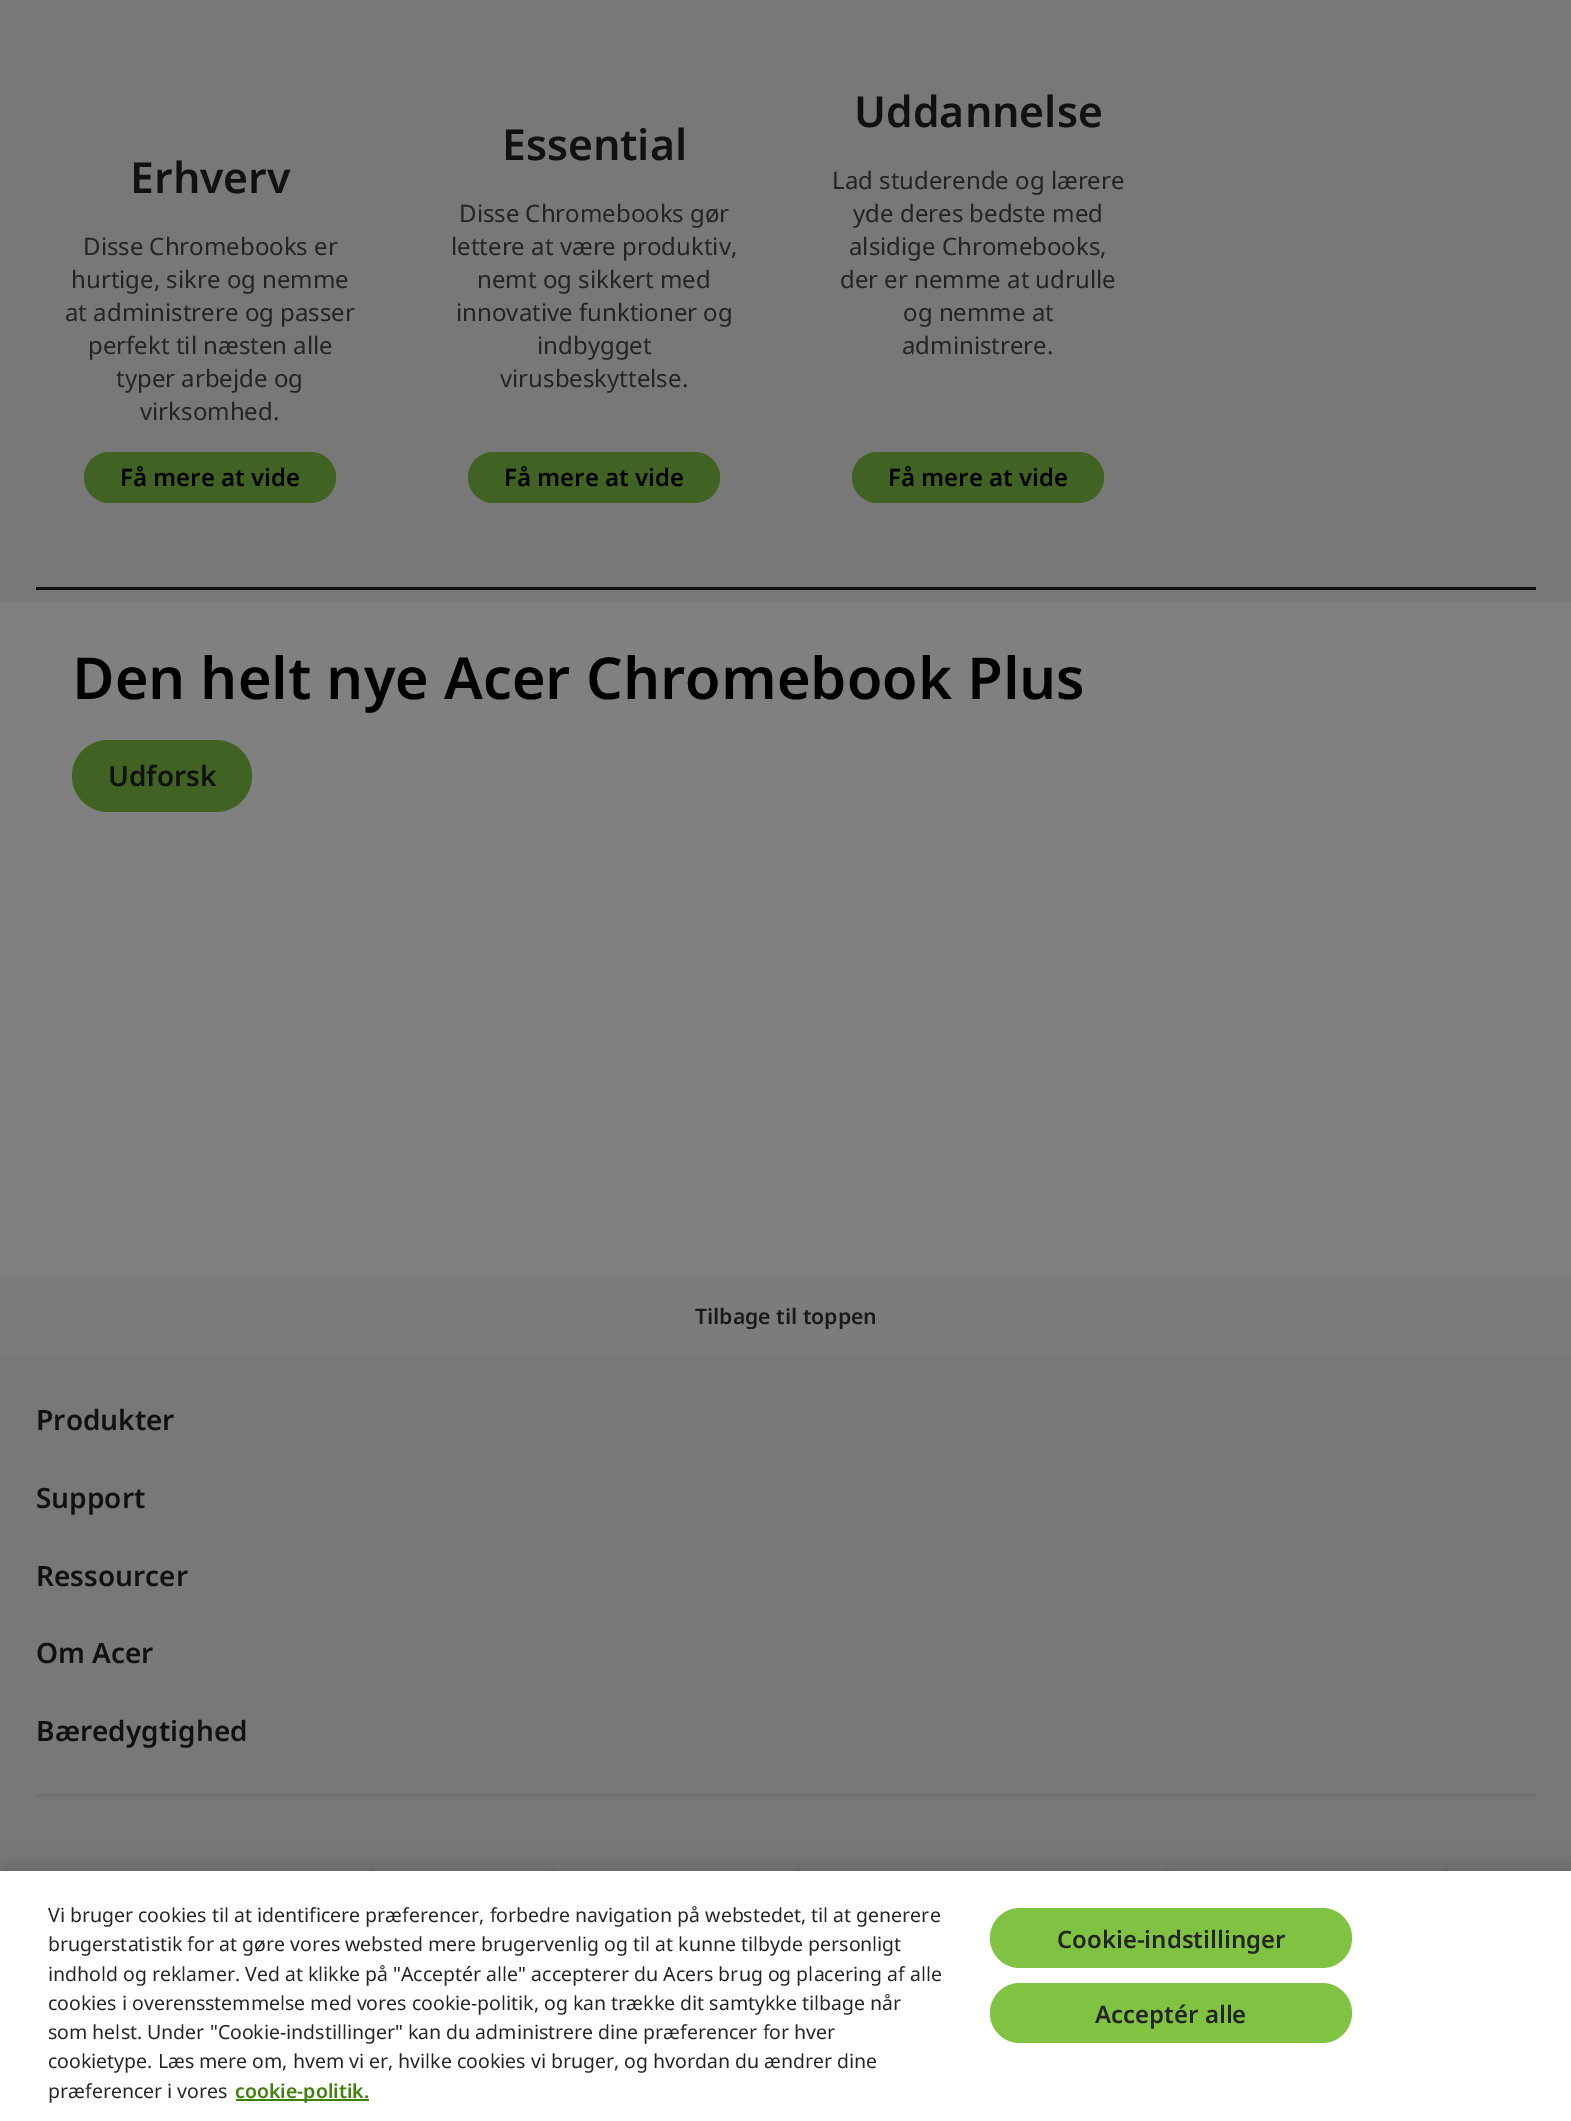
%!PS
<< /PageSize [1571 2121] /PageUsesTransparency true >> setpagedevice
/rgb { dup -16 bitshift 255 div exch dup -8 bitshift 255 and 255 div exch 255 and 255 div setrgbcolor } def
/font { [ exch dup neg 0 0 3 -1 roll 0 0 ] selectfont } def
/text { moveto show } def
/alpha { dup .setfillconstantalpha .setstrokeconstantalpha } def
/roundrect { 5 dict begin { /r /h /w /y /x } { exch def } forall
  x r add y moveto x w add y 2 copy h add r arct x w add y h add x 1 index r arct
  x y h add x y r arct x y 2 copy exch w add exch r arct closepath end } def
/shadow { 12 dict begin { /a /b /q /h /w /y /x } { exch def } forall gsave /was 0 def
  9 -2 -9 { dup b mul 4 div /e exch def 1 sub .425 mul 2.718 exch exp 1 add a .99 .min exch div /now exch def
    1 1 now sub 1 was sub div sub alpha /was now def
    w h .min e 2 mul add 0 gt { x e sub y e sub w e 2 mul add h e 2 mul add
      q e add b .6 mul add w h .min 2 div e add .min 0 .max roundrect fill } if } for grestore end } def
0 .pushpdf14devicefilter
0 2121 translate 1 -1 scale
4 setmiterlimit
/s1 { /NotoSans-SemiBold 42.75 font 16#111111 rgb } def
/s2 { /NotoSans-Regular 24 font 16#242424 rgb } def
/s3 { /NotoSans-SemiBold 24 font 16#000000 rgb } def
/s4 { /NotoSans-SemiBold 57.9 font 16#000000 rgb } def
/s5 { /NotoSans-SemiBold 28 font 16#111111 rgb } def
/s6 { /NotoSans-SemiBold 21.25 font 16#1A1A1A rgb } def
/s7 { /NotoSans-Regular 19.5 font 16#242424 rgb } def
/s8 { /NotoSans-SemiBold 19.5 font 16#40810C rgb } def
/s9 { /NotoSans-SemiBold 24 font 16#242424 rgb } def
16#808080 rgb
0 0 1571 2121 rectfill
16#787878 rgb
0 0 1571 602 rectfill
s1
(Erhverv) 130 193 text
s2
(Disse Chromebooks er) 83 255 text
(hurtige, sikre og nemme) 71 288 text
(at administrere og passer) 65 321 text
(perfekt til næsten alle) 88 354 text
(typer arbejde og) 116 387 text
(virksomhed.) 140 420 text
16#406222 rgb
84 452 252 51 25.5 roundrect fill
s3
(Få mere at vide) 120 486 text
s1
(Essential) 502 160 text
s2
(Disse Chromebooks gør) 459 222 text
(lettere at være produktiv,) 451 255 text
(nemt og sikkert med) 477 288 text
(innovative funktioner og) 456 321 text
(indbygget) 537 354 text
(virusbeskyttelse.) 500 387 text
16#406222 rgb
468 452 252 51 25.5 roundrect fill
s3
(Få mere at vide) 504 486 text
s1
(Uddannelse) 854 127 text
s2
(Lad studerende og lærere) 832 189 text
(yde deres bedste med) 853 222 text
(alsidige Chromebooks,) 849 255 text
(der er nemme at udrulle) 840 288 text
(og nemme at) 903 321 text
(administrere.) 902 354 text
16#406222 rgb
852 452 252 51 25.5 roundrect fill
s3
(Få mere at vide) 888 486 text
16#111111 rgb
36 587 1500 3 rectfill
s4
(Den helt nye Acer Chromebook Plus) 72 699 text
16#406222 rgb
72 740 180 72 36 roundrect fill
s5
(Udforsk) 108 786 text
16#787878 rgb
0 1356 1571 515 rectfill
16#7C7C7C rgb
0 1277 1571 79 rectfill
s6
(Tilbage til toppen) 695 1324 text
s5
(Produkter) 36 1430 text
(Support) 36 1508 text
(Ressourcer) 36 1586 text
(Om Acer) 36 1663 text
(Bæredygtighed) 36 1741 text
16#707070 rgb
36 1794 1500 3 rectfill
371 1869 3 2 rectfill
551 1869 3 2 rectfill
797 1869 3 2 rectfill
1166 1869 3 2 rectfill
1445 1869 3 2 rectfill
16#000000 rgb
0 1871 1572 250 0 13.5 0.2 shadow
16#FFFFFF rgb
0 1871 1571 250 rectfill
s7
(Vi bruger cookies til at identificere præferencer, forbedre navigation på webstedet, til at generere) 48 1922 text
(brugerstatistik for at gøre vores websted mere brugervenlig og til at kunne tilbyde personligt) 48 1951 text
(indhold og reklamer. Ved at klikke på "Acceptér alle" accepterer du Acers brug og placering af alle) 48 1981 text
(cookies i overensstemmelse med vores cookie-politik, og kan trække dit samtykke tilbage når) 48 2010 text
(som helst. Under "Cookie-indstillinger" kan du administrere dine præferencer for hver) 48 2039 text
(cookietype. Læs mere om, hvem vi er, hvilke cookies vi bruger, og hvordan du ændrer dine) 48 2068 text
(præferencer i vores) 48 2098 text
16#40810C rgb
236 2099 133 2 rectfill
s8
(cookie-politik.) 235 2098 text
16#80C343 rgb
990 1908 362 60 30 roundrect fill
s9
(Cookie-indstillinger) 1057 1948 text
16#80C343 rgb
990 1983 362 60 30 roundrect fill
s9
(Acceptér alle) 1095 2023 text
.poppdf14devicefilter showpage
